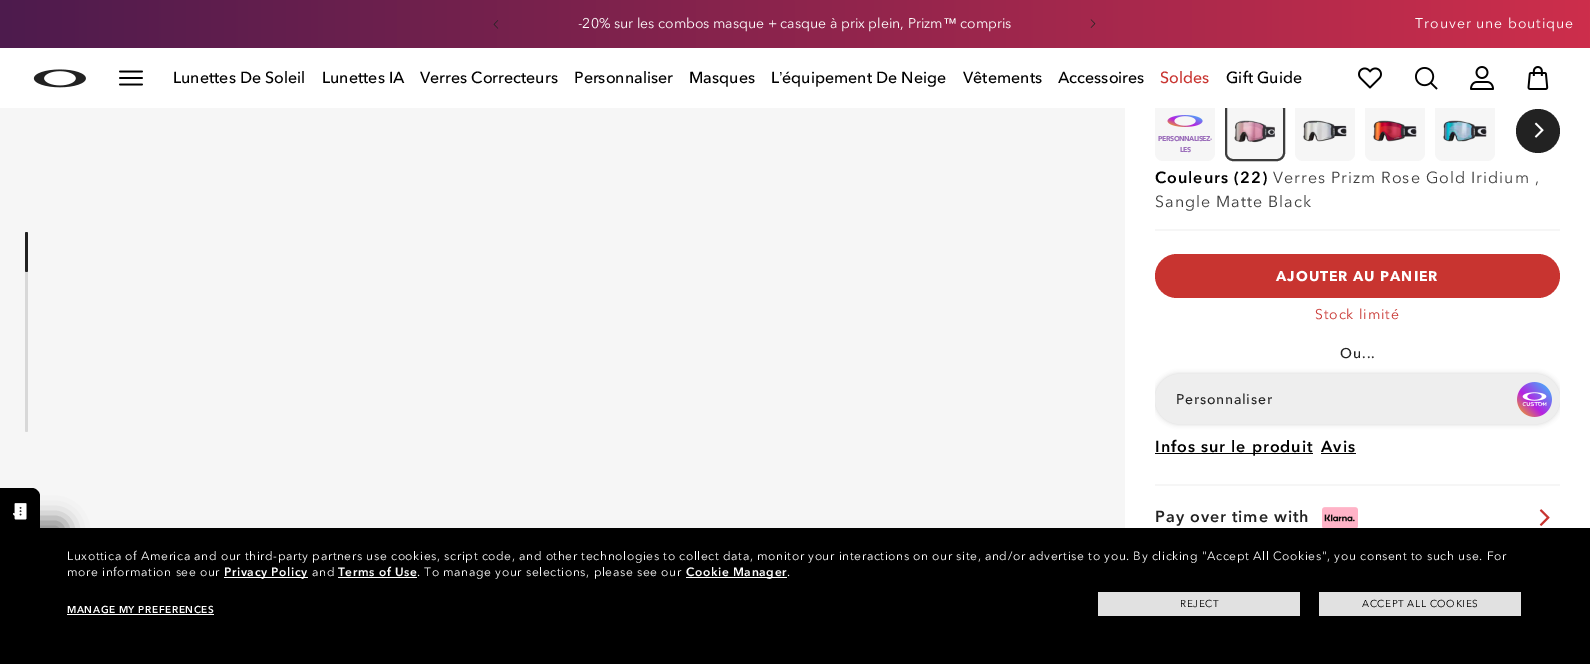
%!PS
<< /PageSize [1590 664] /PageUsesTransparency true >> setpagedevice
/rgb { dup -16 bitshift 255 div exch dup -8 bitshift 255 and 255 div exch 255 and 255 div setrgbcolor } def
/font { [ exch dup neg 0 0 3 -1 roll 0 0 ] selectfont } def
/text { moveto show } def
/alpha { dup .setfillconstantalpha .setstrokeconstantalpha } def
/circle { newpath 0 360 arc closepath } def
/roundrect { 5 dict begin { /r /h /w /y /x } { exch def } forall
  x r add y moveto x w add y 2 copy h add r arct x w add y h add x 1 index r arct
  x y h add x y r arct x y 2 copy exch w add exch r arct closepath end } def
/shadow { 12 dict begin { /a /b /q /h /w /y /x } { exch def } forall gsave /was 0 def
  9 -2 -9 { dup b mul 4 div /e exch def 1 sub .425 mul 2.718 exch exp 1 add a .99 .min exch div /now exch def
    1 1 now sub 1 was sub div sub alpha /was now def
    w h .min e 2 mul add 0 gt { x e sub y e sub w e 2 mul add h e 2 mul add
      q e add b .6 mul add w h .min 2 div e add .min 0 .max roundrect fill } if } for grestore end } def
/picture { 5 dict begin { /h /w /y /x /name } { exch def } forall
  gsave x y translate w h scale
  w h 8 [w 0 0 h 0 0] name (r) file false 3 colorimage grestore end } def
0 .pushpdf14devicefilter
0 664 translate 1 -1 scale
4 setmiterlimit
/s1 { /AvenirNext-Regular 14 font 16#FFFFFF rgb } def
/s2 { /LiberationSans-Regular 14 font 16#FFFFFF rgb } def
/s3 { /AvenirNext-Medium 16 font 16#000000 rgb } def
/s4 { /LiberationSans-Regular 16 font 16#000000 rgb } def
/s5 { /AvenirNext-Medium 16 font 16#C83430 rgb } def
16#FFFFFF rgb
0 0 1590 664 rectfill
gsave 0 0 moveto 1590 0 lineto 1590 48 lineto 0 48 lineto closepath clip newpath
<< /ShadingType 2 /ColorSpace /DeviceRGB /Coords [0 24 1590 24] /Extend [true true] /Function << /FunctionType 2 /Domain [0 1] /C0 [0.302 0.106 0.306] /C1 [0.804 0.18 0.294] /N 1 >> >> shfill grestore
s1
(-20% sur les combos masque + casque à prix plein, Prizm) 578 28 text
s2
(™) 943 28 text
s1
(compris) 960 28 text
(pic1.raw) 493 20 6 9 picture
(pic2.raw) 1090 19 6 9 picture
1415 28 moveto 1 0 (Trouver une boutique) ashow
16#F6F6F6 rgb
1155 101 60 60 8 roundrect fill
1226 102 58 58 7 roundrect gsave fill grestore
16#3D3D3D rgb
2 setlinewidth
stroke
16#F6F6F6 rgb
1295 101 60 60 8 roundrect fill
1365 101 60 60 8 roundrect fill
1435 101 60 60 8 roundrect fill
16#FFFFFF rgb
1155 101 340 7 rectfill
(pic3.raw) 33 69 53 19 picture
(pic4.raw) 119 70 24 16 picture
s3
(Lunettes De Soleil) 173 83 text
(Lunettes IA) 322 83 text
(Verres Correcteurs) 420 83 text
(Personnaliser) 574 83 text
(Masques) 689 83 text
(L) 771 83 text
s4
(’) 779 83 text
s3
(équipement De Neige) 782 83 text
(Vêtements) 963 83 text
(Accessoires) 1058 83 text
s5
(Soldes) 1160 83 text
s3
(Gift Guide) 1226 83 text
(pic5.raw) 1358 67 24 22 picture
(pic6.raw) 1415 67 23 23 picture
(pic7.raw) 1470 66 24 24 picture
(pic8.raw) 1527 66 22 24 picture
16#F6F6F6 rgb
0 108 1125 420 rectfill
16#D8D8D8 rgb
25 232 3 200 1.5 roundrect fill
16#222222 rgb
25 232 3 40 1.5 roundrect fill
16#F6F6F6 rgb
1155 229 405 2 rectfill
(pic9.raw) 1167 115 36 12 picture
/AvenirNext-Bold 7 font
16#9C6FBB rgb
1158 141 moveto -0.5 0 (PERSONNALISEZ-) ashow
1180 152 moveto -0.5 0 (LES) ashow
(pic10.raw) 1234 120 41 23 picture
(pic11.raw) 1303 120 44 22 picture
(pic12.raw) 1373 120 44 22 picture
(pic13.raw) 1443 120 44 22 picture
16#222222 rgb
1538 131 22 circle fill
(pic14.raw) 1534 122 10 16 picture
/AvenirNext-SemiBold 16 font
16#000000 rgb
1155 183 moveto 1 0 (Couleurs \(22\)) ashow
/AvenirNext-Regular 16 font
16#3D3D3D rgb
1273 183 moveto 1 0 (Verres Prizm Rose Gold Iridium ,) ashow
1155 207 moveto 1 0 (Sangle Matte Black) ashow
16#C83430 rgb
1155 254 405 44 22 roundrect fill
/AvenirNext-Bold 14 font
16#FFFFFF rgb
1276 281 moveto 1 0 (AJOUTER AU PANIER) ashow
/AvenirNext-Regular 14 font
16#C83430 rgb
1315 319 moveto 0.9 0 (Stock limité) ashow
/AvenirNext-Medium 14 font
16#222222 rgb
1340 358 moveto 1 0 (Ou...) ashow
gsave
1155 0 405 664 rectclip
1155 374 405 50 25 2.5 0.2 shadow
grestore
16#EEEEEE rgb
1155 374 405 50 25 roundrect fill
16#222222 rgb
1176 404 moveto 0.75 0 (Personnaliser) ashow
(pic15.raw) 1517 382 35 35 picture
16#000000 rgb
1155 453 158 1 rectfill
/AvenirNext-SemiBold 16 font
1155 452 moveto 1 0 (Infos sur le produit) ashow
1321 452 moveto 1 0 (Avis) ashow
1321 453 35 1 rectfill
16#F6F6F6 rgb
1155 484 405 2 rectfill
16#222222 rgb
1155 522 moveto 1 0 (Pay over time with) ashow
(pic16.raw) 1322 507 36 21 picture
(pic17.raw) 1539 509 11 17 picture
-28 518 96 40 8 10 0.5 shadow
16#000000 rgb
40 496 moveto 40 576 lineto 40 580 36 584 32 584 curveto 0 584 lineto 0 488 lineto 32 488 lineto 36 488 40 492 40 496 curveto closepath fill
(pic18.raw) 13 503 14 17 picture
0 528 1590 136 rectfill
/AvenirNext-Regular 12 font
16#FFFFFF rgb
67 560 moveto 0.6 0 (Luxottica of America and our third-party partners use cookies, script code, and other technologies to collect data, monitor your interactions on our site, and/or advertise to you. By clicking "Accept All Cookies", you consent to such use. For) ashow
67 576 moveto 0.6 0 (more information see our) ashow
224 577 84 1 rectfill
/AvenirNext-SemiBold 12 font
224 576 moveto 0.6 0 (Privacy Policy) ashow
/AvenirNext-Regular 12 font
312 576 moveto 0.6 0 (and) ashow
/AvenirNext-SemiBold 12 font
338 576 moveto 0.6 0 (Terms of Use) ashow
/AvenirNext-Regular 12 font
417 576 moveto 0.6 0 (. To manage your selections, please see our) ashow
338 577 79 1 rectfill
686 577 101 1 rectfill
/AvenirNext-SemiBold 12 font
686 576 moveto 0.6 0 (Cookie Manager) ashow
/AvenirNext-Regular 12 font
787 576 moveto 0.6 0 (.) ashow
16#E1E1E1 rgb
1098 592 202 24 rectfill
/AvenirNext-Regular 10 font
16#000000 rgb
1180 607 moveto 0.6 0 (REJECT) ashow
16#E1E1E1 rgb
1319 592 202 24 rectfill
16#000000 rgb
1362 607 moveto 0.6 0 (ACCEPT ALL COOKIES) ashow
/AvenirNext-SemiBold 10 font
16#FFFFFF rgb
67 613 moveto 0.6 0 (MANAGE MY PREFERENCES) ashow
67 614 147 1 rectfill
.poppdf14devicefilter showpage
